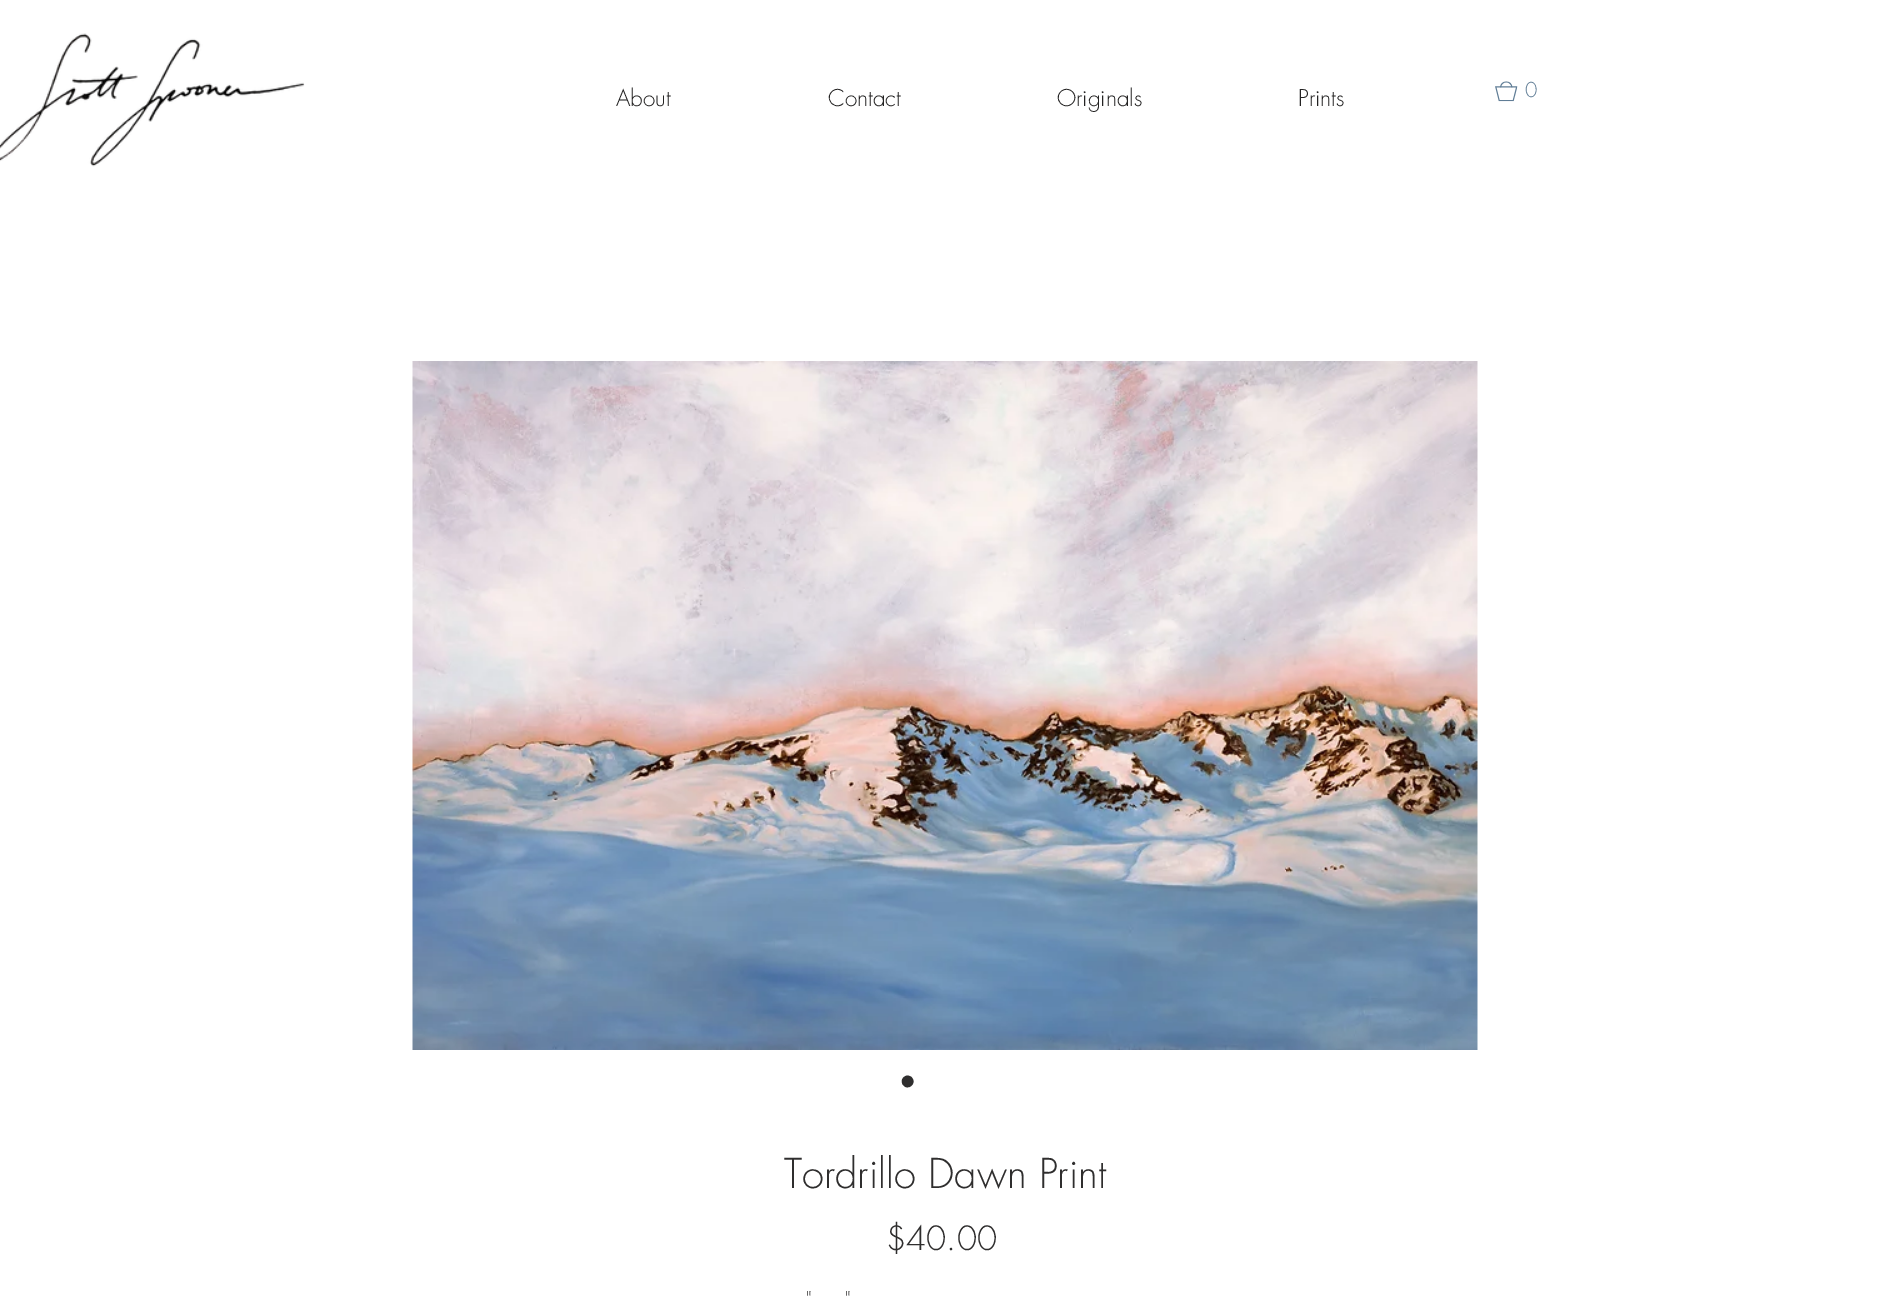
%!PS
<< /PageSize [1889 1299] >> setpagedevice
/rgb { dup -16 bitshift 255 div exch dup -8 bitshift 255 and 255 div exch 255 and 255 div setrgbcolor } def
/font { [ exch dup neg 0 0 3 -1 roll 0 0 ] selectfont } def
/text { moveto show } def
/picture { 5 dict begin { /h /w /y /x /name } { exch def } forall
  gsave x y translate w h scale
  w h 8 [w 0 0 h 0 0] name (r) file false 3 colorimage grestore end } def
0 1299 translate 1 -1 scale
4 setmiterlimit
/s1 { /futura-Light 22.5 font 16#242323 rgb } def
/s2 { /futura-Light 20 font 16#607D96 rgb } def
/s3 { /LiberationSans-Regular 44 font 16#2F2E2E rgb } def
/s4 { /futura-Light 40 font 16#2F2E2E rgb } def
/s5 { /futura-Light 32.5 font 16#2F2E2E rgb } def
/s6 { /futura-Light 20 font 16#2F2E2E rgb } def
16#FFFFFF rgb
0 0 1889 1299 rectfill
(pic1.raw) 0 33 305 134 picture
s1
(About) 616 106 text
(Contact) 828 106 text
(Originals) 1057 106 text
(Prints) 1298 106 text
(pic2.raw) 1495 81 23 21 picture
s2
(0) 1525 97 text
(pic3.raw) 412 361 1066 689 picture
s3
(•) 900 1096 text
s4
(Tordrillo Dawn Print) 784 1188 text
s5
($40.00) 886 1250 text
s6
(") 806 1306 text
(") 845 1306 text
showpage
